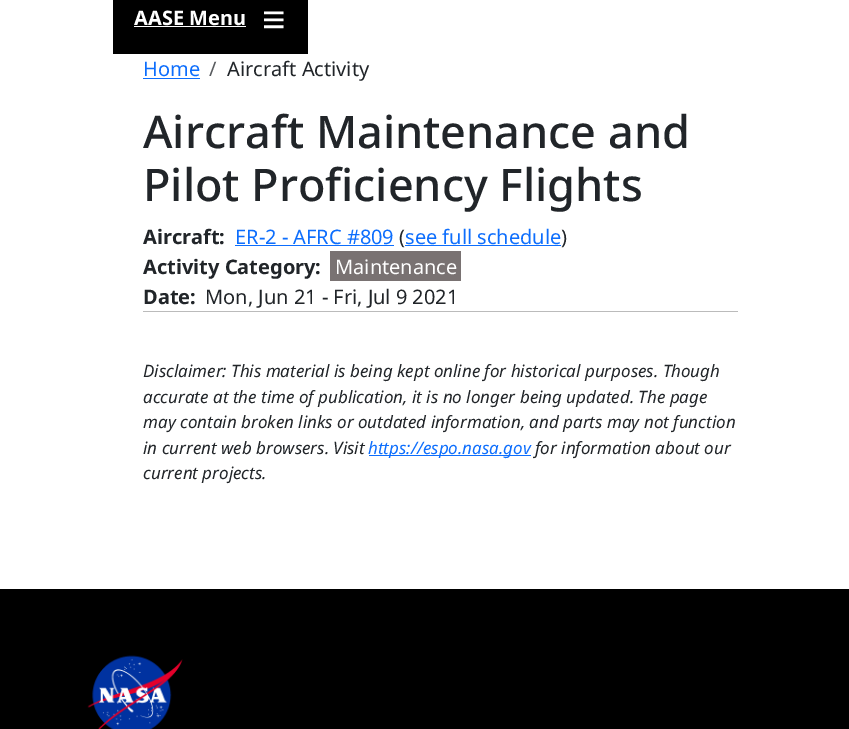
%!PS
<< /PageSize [849 729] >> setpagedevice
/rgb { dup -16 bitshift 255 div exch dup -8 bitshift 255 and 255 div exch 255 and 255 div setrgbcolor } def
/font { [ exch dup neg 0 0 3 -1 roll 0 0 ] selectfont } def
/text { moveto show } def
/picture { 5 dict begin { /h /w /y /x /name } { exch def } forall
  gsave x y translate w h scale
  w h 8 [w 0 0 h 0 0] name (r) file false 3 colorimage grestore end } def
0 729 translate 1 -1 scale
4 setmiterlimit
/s1 { /NotoSans-Bold 20 font 16#FFFFFF rgb } def
/s2 { /LiberationSans-Bold 40 font 16#FFFFFF rgb } def
/s3 { /NotoSans-Regular 20 font 16#0D6EFD rgb } def
/s4 { /NotoSans-Regular 20 font 16#595C5F rgb } def
/s5 { /NotoSans-Regular 20 font 16#212529 rgb } def
/s6 { /NotoSans-Medium 45 font 16#212529 rgb } def
/s7 { /NotoSans-Bold 20 font 16#212529 rgb } def
/s8 { /NotoSans-Regular 20 font 16#FFFFFF rgb } def
/s9 { /NotoSans-Italic 17 font 16#212529 rgb } def
/s10 { /NotoSans-Italic 17 font 16#0D6EFD rgb } def
16#FFFFFF rgb
0 0 849 729 rectfill
16#000000 rgb
113 0 195 54 rectfill
s1
(AASE Menu) 134 25 text
134 26 112 1 rectfill
s2
(≡) 262 33 text
s3
(Home) 143 76 text
143 78 57 1 rectfill
s4
(/) 209 76 text
s5
(Aircraft Activity) 227 76 text
s6
(Aircraft Maintenance and) 143 148 text
(Pilot Proficiency Flights) 143 201 text
s7
(Aircraft:) 143 244 text
s3
(ER-2 - AFRC #809) 235 244 text
235 245 159 1 rectfill
s5
(\() 399 244 text
s3
(see full schedule) 405 244 text
405 245 156 1 rectfill
s5
(\)) 561 244 text
s7
(Activity Category:) 143 274 text
16#797272 rgb
330 251 131 30 rectfill
s8
(Maintenance) 335 274 text
s7
(Date:) 143 304 text
s5
(Mon, Jun 21 - Fri, Jul 9 2021) 205 304 text
16#BBBBBB rgb
143 311 595 1 rectfill
s9
(Disclaimer: This material is being kept online for historical purposes. Though) 143 377 text
(accurate at the time of publication, it is no longer being updated. The page) 143 403 text
(may contain broken links or outdated information, and parts may not function) 143 428 text
(in current web browsers. Visit) 143 454 text
16#0D6EFD rgb
369 455 162 1 rectfill
(https://espo.nasa.gov) 368 454 text
s9
(for information about our) 535 454 text
(current projects.) 143 479 text
16#000000 rgb
0 589 849 140 rectfill
(pic1.raw) 87 655 96 74 picture
showpage
